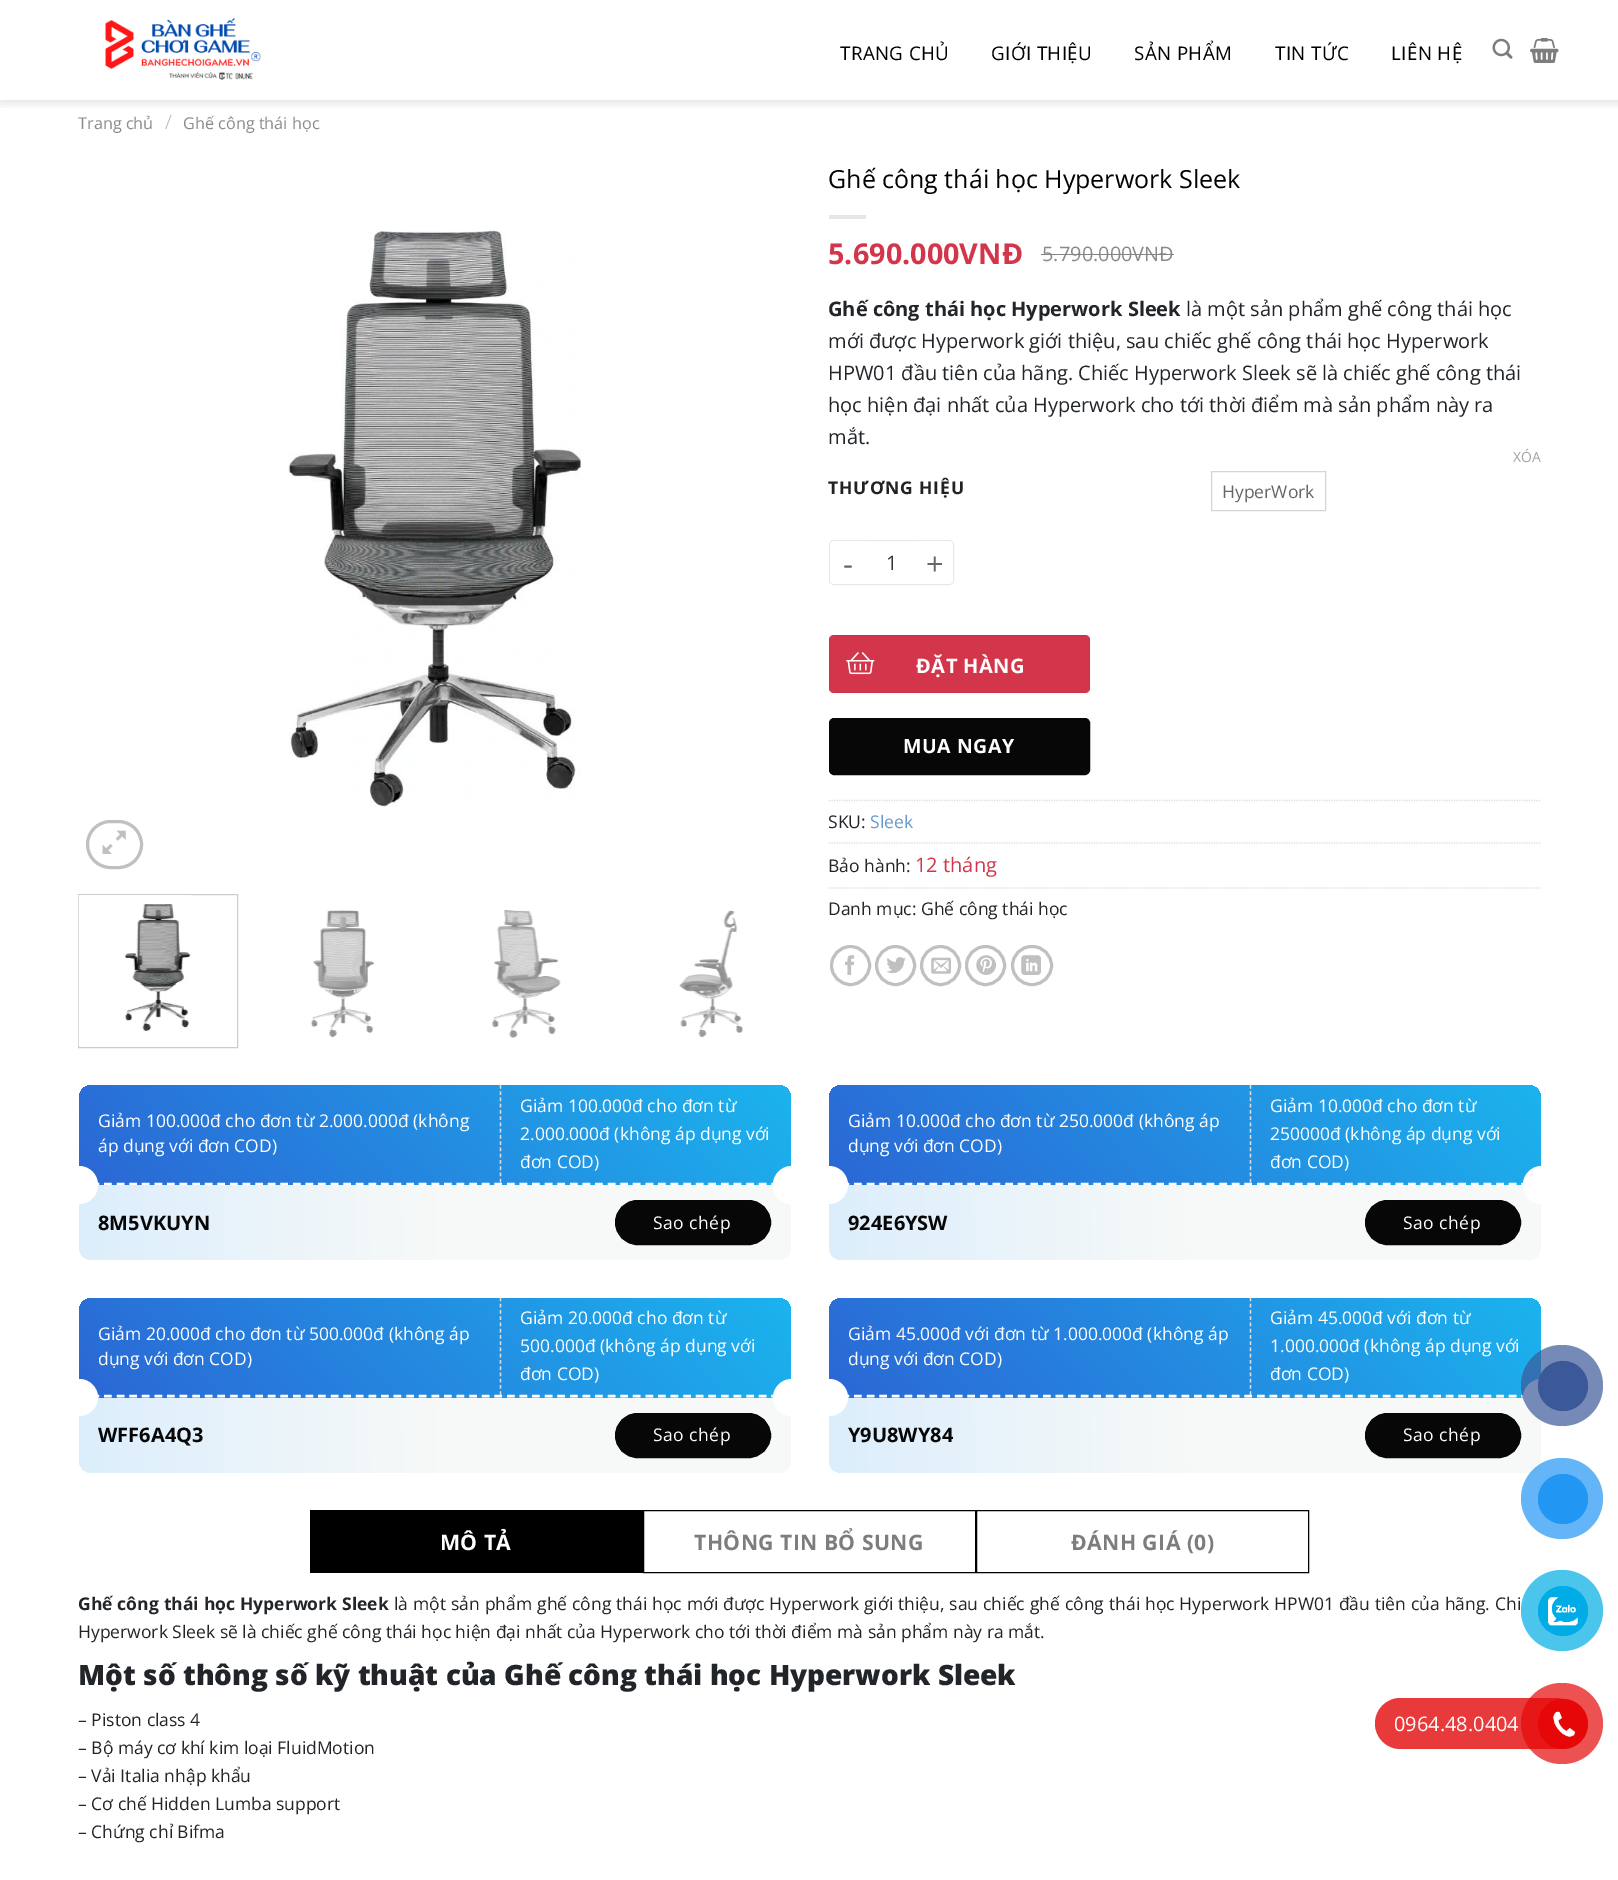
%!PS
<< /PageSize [1618 1880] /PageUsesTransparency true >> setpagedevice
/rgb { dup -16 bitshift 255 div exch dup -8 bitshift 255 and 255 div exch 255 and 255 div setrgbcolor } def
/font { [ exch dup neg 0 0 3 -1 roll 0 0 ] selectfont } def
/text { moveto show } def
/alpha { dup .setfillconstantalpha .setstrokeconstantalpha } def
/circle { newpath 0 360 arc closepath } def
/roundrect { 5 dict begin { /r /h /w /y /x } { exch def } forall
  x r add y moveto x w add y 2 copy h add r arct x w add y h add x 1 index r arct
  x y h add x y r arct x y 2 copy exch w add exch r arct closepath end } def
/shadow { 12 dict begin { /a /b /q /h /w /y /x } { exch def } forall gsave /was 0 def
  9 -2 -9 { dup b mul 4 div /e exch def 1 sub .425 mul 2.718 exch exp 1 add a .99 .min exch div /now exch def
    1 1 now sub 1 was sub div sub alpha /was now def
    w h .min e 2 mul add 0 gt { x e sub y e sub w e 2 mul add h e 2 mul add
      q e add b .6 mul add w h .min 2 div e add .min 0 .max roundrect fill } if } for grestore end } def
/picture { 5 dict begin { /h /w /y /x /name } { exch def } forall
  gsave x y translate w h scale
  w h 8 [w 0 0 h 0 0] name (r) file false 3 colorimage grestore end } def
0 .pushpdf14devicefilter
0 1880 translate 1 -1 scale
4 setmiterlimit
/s1 { /OpenSans-Regular 16.25 font 16#8A8A8A rgb } def
/s2 { /OpenSans-Light 20 font 16#B2B2B2 rgb } def
/s3 { /OpenSans-Regular 25 font 16#000000 rgb } def
/s4 { /OpenSans-Bold 28.75 font 16#D3364A rgb } def
/s5 { /OpenSans-Regular 20 font 16#8A8A8A rgb } def
/s6 { /OpenSans-Bold 20 font 16#212529 rgb } def
/s7 { /OpenSans-Regular 20 font 16#212529 rgb } def
/s8 { /OpenSans-Regular 14 font 16#A3A3A3 rgb } def
/s9 { /OpenSans-Regular 17.5 font 16#666666 rgb } def
/s10 { /OpenSans-Regular 20 font 16#333333 rgb } def
/s11 { /OpenSans-Regular 17.5 font 16#212529 rgb } def
/s12 { /OpenSans-Regular 17.5 font 16#6699CC rgb } def
/s13 { /OpenSans-Regular 20 font 16#D3364A rgb } def
/s14 { /OpenSans-Regular 17.5 font 16#FFFFFF rgb } def
/s15 { /OpenSans-Bold 20 font 16#070707 rgb } def
/s16 { /OpenSans-ExtraBold 28 font 16#212529 rgb } def
/s17 { /OpenSans-Regular 20 font 16#FFFFFF rgb } def
16#FFFFFF rgb
0 0 1618 1880 rectfill
gsave
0 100 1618 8 rectclip
16#000000 rgb
1 1 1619 100 0 6 0.15 shadow
grestore
(pic1.raw) 105 18 156 62 picture
/OpenSans-Regular 18.75 font
16#000000 rgb
840 60 moveto 0.4 0 (TRANG CHỦ) ashow
991 60 moveto 0.4 0 (GIỚI THIỆU) ashow
1134 60 moveto 0.4 0 (SẢN PHẨM) ashow
1275 60 moveto 0.4 0 (TIN TỨC) ashow
1391 60 moveto 0.4 0 (LIÊN HỆ) ashow
(pic2.raw) 1492 38 21 21 picture
(pic3.raw) 1530 38 29 25 picture
s1
(Trang chủ) 78 129 text
s2
(/) 165 129 text
s1
(Ghế công thái học) 183 129 text
(pic4.raw) 288 230 294 577 picture
16#C0C0C0 rgb
3 setlinewidth
87.5 821.5 54 46 23 roundrect stroke
(pic5.raw) 102 830 24 24 picture
16#CCCCCC rgb
1 setlinewidth
78.5 894.5 159 153 rectstroke
(pic6.raw) 78 895 113 151 picture
(pic7.raw) 310 910 64 128 picture
(pic8.raw) 491 909 70 129 picture
(pic9.raw) 679 910 64 128 picture
s3
(Ghế công thái học Hyperwork Sleek) 828 188 text
16#E6E6E6 rgb
829 215 37 4 rectfill
s4
(5.690.000VNĐ) 828 264 text
s5
(5.790.000) 1042 261 text
16#858585 rgb
1041 254 92 1 rectfill
s5
(VNĐ) 1132 261 text
16#858585 rgb
1133 254 41 1 rectfill
s6
(Ghế công thái học Hyperwork Sleek) 828 316 text
s7
(là một sản phẩm ghế công thái học) 1186 316 text
(mới được Hyperwork giới thiệu, sau chiếc ghế công thái học Hyperwork) 828 348 text
(HPW01 đầu tiên của hãng. Chiếc Hyperwork Sleek sẽ là chiếc ghế công thái) 828 380 text
(học hiện đại nhất của Hyperwork cho tới thời điểm mà sản phẩm này ra) 828 412 text
(mắt.) 828 444 text
/OpenSans-Bold 17.5 font
16#222222 rgb
828 494 moveto 0.9 0 (THƯƠNG HIỆU) ashow
s8
(XÓA) 1513 462 text
16#D5D5D5 rgb
1211.5 471.5 114 39 rectstroke
s9
(HyperWork) 1222 498 text
16#E7E7E7 rgb
829.5 540.5 124 44 4.5 roundrect stroke
16#FFFFFF rgb
834 541 moveto 868 541 lineto 868 584 lineto 834 584 lineto 832 584 830 582 830 580 curveto 830 545 lineto 830 543 832 541 834 541 curveto closepath fill
/OpenSans-Regular 31 font
16#666666 rgb
843 575 moveto 1 0 (-) ashow
s10
(1) 886 570 text
16#FFFFFF rgb
918 541 moveto 949 541 lineto 951 541 953 543 953 545 curveto 953 580 lineto 953 582 951 584 949 584 curveto 918 584 lineto closepath fill
/OpenSans-Regular 31 font
16#666666 rgb
926 575 moveto 1 0 (+) ashow
16#D3364A rgb
829 635 261 58 5 roundrect fill
0.05 alpha
16#000000 rgb
829.5 635.5 260 57 rectstroke
1 alpha
(pic10.raw) 846 652 29 23 picture
/OpenSans-Bold 20 font
16#FFFFFF rgb
916 673 moveto 0.5 0 (ĐẶT HÀNG) ashow
16#070707 rgb
829.5 718.5 260 56 4.5 roundrect gsave fill grestore
stroke
/OpenSans-Bold 19.5 font
16#FFFFFF rgb
903 753 moveto 0.5 0 (MUA NGAY) ashow
16#DDDDDD rgb
1.2 setlinewidth
[1.25 1.25] 0 setdash
829 800.5 moveto 1541 800.5 lineto stroke
s11
(SKU:) 828 828 text
s12
(Sleek) 870 828 text
16#DDDDDD rgb
829 843 moveto 1541 843 lineto stroke
s11
(Bảo hành:) 828 872 text
s13
(12 tháng) 915 872 text
16#DDDDDD rgb
829 888 moveto 1541 888 lineto stroke
s11
(Danh mục: Ghế công thái học) 828 915 text
16#C0C0C0 rgb
3 setlinewidth
[] 0 setdash
850.5 965.5 19 circle stroke
(pic11.raw) 845 955 10 20 picture
895.5 965.5 19 circle stroke
(pic12.raw) 886 957 20 17 picture
940.5 965.5 19 circle stroke
(pic13.raw) 931 957 20 17 picture
985.5 965.5 19 circle stroke
(pic14.raw) 976 955 20 20 picture
1012.5 946.5 39 38 19 roundrect stroke
(pic15.raw) 1021 955 20 20 picture
gsave 92 1085 moveto 778 1085 lineto 785 1085 791 1091 791 1098 curveto 791 1183 lineto 79 1183 lineto 79 1098 lineto 79 1091 85 1085 92 1085 curveto closepath clip newpath
<< /ShadingType 2 /ColorSpace /DeviceRGB /Coords [220 1334 650 933] /Extend [true true] /Function << /FunctionType 3 /Domain [0 1] /Functions [<< /FunctionType 2 /Domain [0 1] /C0 [0.169 0.404 0.835] /C1 [0.141 0.549 0.882] /N 1 >> << /FunctionType 2 /Domain [0 1] /C0 [0.141 0.549 0.882] /C1 [0.106 0.706 0.933] /N 1 >>] /Bounds [0.5] /Encode [0 1 0 1] >> >> shfill grestore
gsave 99 1183 moveto 772 1183 lineto 772 1185 lineto 99 1185 lineto closepath clip newpath
<< /ShadingType 2 /ColorSpace /DeviceRGB /Coords [220 1432 650 1031] /Extend [true true] /Function << /FunctionType 3 /Domain [0 1] /Functions [<< /FunctionType 2 /Domain [0 1] /C0 [0.169 0.404 0.835] /C1 [0.141 0.549 0.882] /N 1 >> << /FunctionType 2 /Domain [0 1] /C0 [0.141 0.549 0.882] /C1 [0.106 0.706 0.933] /N 1 >>] /Bounds [0.5] /Encode [0 1 0 1] >> >> shfill grestore
16#FFFFFF rgb
2.5 setlinewidth
[7.5 5.09] 0 setdash
79 1184 moveto 791 1184 lineto stroke
16#DDDDDD rgb
1.2 setlinewidth
[3.75 2.5] 0 setdash
500.5 1085 moveto 500.5 1182.5 lineto stroke
s14
(Giảm 100.000đ cho đơn từ 2.000.000đ \(không) 98 1127 text
(áp dụng với đơn COD\)) 98 1152 text
(Giảm 100.000đ cho đơn từ) 520 1112 text
(2.000.000đ \(không áp dụng với) 520 1140 text
(đơn COD\)) 520 1168 text
gsave 79 1185 moveto 791 1185 lineto 791 1247 lineto 791 1254 785 1260 778 1260 curveto 92 1260 lineto 85 1260 79 1254 79 1247 curveto closepath clip newpath
<< /ShadingType 2 /ColorSpace /DeviceRGB /Coords [78 1229 792 1216] /Extend [true true] /Function << /FunctionType 3 /Domain [0 1] /Functions [<< /FunctionType 2 /Domain [0 1] /C0 [0.863 0.933 0.988] /C1 [0.969 0.976 0.973] /N 1 >> << /FunctionType 2 /Domain [0 1] /C0 [0.969 0.976 0.973] /C1 [0.969 0.976 0.973] /N 1 >>] /Bounds [0.5] /Encode [0 1 0 1] >> >> shfill grestore
79 1166 moveto 89.5 1166 98 1174.5 98 1185 curveto 98 1195.5 89.5 1204 79 1204 curveto closepath fill
791.5 1166 moveto 791 1166 lineto 791 1204 lineto 791.5 1204 lineto 781.5 1204 773 1195.5 773 1185.5 curveto 773 1184.5 lineto 773 1174.5 781.5 1166 791.5 1166 curveto closepath fill
s15
(8M5VKUYN) 98 1230 text
615.5 1200.5 155 44 22 roundrect gsave fill grestore
1 setlinewidth
[] 0 setdash
stroke
/OpenSans-Regular 17.5 font
16#FFFFFF rgb
653 1229 moveto 0.5 0 (Sao chép) ashow
gsave 842 1085 moveto 1528 1085 lineto 1535 1085 1541 1091 1541 1098 curveto 1541 1183 lineto 829 1183 lineto 829 1098 lineto 829 1091 835 1085 842 1085 curveto closepath clip newpath
<< /ShadingType 2 /ColorSpace /DeviceRGB /Coords [970 1334 1400 933] /Extend [true true] /Function << /FunctionType 3 /Domain [0 1] /Functions [<< /FunctionType 2 /Domain [0 1] /C0 [0.169 0.404 0.835] /C1 [0.141 0.549 0.882] /N 1 >> << /FunctionType 2 /Domain [0 1] /C0 [0.141 0.549 0.882] /C1 [0.106 0.706 0.933] /N 1 >>] /Bounds [0.5] /Encode [0 1 0 1] >> >> shfill grestore
gsave 849 1183 moveto 1522 1183 lineto 1522 1185 lineto 849 1185 lineto closepath clip newpath
<< /ShadingType 2 /ColorSpace /DeviceRGB /Coords [970 1432 1400 1031] /Extend [true true] /Function << /FunctionType 3 /Domain [0 1] /Functions [<< /FunctionType 2 /Domain [0 1] /C0 [0.169 0.404 0.835] /C1 [0.141 0.549 0.882] /N 1 >> << /FunctionType 2 /Domain [0 1] /C0 [0.141 0.549 0.882] /C1 [0.106 0.706 0.933] /N 1 >>] /Bounds [0.5] /Encode [0 1 0 1] >> >> shfill grestore
2.5 setlinewidth
[7.5 5.09] 0 setdash
829 1184 moveto 1541 1184 lineto stroke
16#DDDDDD rgb
1.2 setlinewidth
[3.75 2.5] 0 setdash
1250.5 1085 moveto 1250.5 1182.5 lineto stroke
s14
(Giảm 10.000đ cho đơn từ 250.000đ \(không áp) 848 1127 text
(dụng với đơn COD\)) 848 1152 text
(Giảm 10.000đ cho đơn từ) 1270 1112 text
(250000đ \(không áp dụng với) 1270 1140 text
(đơn COD\)) 1270 1168 text
gsave 829 1185 moveto 1541 1185 lineto 1541 1247 lineto 1541 1254 1535 1260 1528 1260 curveto 842 1260 lineto 835 1260 829 1254 829 1247 curveto closepath clip newpath
<< /ShadingType 2 /ColorSpace /DeviceRGB /Coords [828 1229 1542 1216] /Extend [true true] /Function << /FunctionType 3 /Domain [0 1] /Functions [<< /FunctionType 2 /Domain [0 1] /C0 [0.863 0.933 0.988] /C1 [0.969 0.976 0.973] /N 1 >> << /FunctionType 2 /Domain [0 1] /C0 [0.969 0.976 0.973] /C1 [0.969 0.976 0.973] /N 1 >>] /Bounds [0.5] /Encode [0 1 0 1] >> >> shfill grestore
829 1166 moveto 839.5 1166 848 1174.5 848 1185 curveto 848 1195.5 839.5 1204 829 1204 curveto closepath fill
1541.5 1166 moveto 1541 1166 lineto 1541 1204 lineto 1541.5 1204 lineto 1531.5 1204 1523 1195.5 1523 1185.5 curveto 1523 1184.5 lineto 1523 1174.5 1531.5 1166 1541.5 1166 curveto closepath fill
s15
(924E6YSW) 848 1230 text
1365.5 1200.5 155 44 22 roundrect gsave fill grestore
1 setlinewidth
[] 0 setdash
stroke
/OpenSans-Regular 17.5 font
16#FFFFFF rgb
1403 1229 moveto 0.5 0 (Sao chép) ashow
gsave 92 1298 moveto 778 1298 lineto 785 1298 791 1304 791 1311 curveto 791 1395 lineto 79 1395 lineto 79 1311 lineto 79 1304 85 1298 92 1298 curveto closepath clip newpath
<< /ShadingType 2 /ColorSpace /DeviceRGB /Coords [220 1547 650 1146] /Extend [true true] /Function << /FunctionType 3 /Domain [0 1] /Functions [<< /FunctionType 2 /Domain [0 1] /C0 [0.169 0.404 0.835] /C1 [0.141 0.549 0.882] /N 1 >> << /FunctionType 2 /Domain [0 1] /C0 [0.141 0.549 0.882] /C1 [0.106 0.706 0.933] /N 1 >>] /Bounds [0.5] /Encode [0 1 0 1] >> >> shfill grestore
gsave 97 1395 moveto 774 1395 lineto 774 1398 lineto 97 1398 lineto closepath clip newpath
<< /ShadingType 2 /ColorSpace /DeviceRGB /Coords [220 1644 650 1243] /Extend [true true] /Function << /FunctionType 3 /Domain [0 1] /Functions [<< /FunctionType 2 /Domain [0 1] /C0 [0.169 0.404 0.835] /C1 [0.141 0.549 0.882] /N 1 >> << /FunctionType 2 /Domain [0 1] /C0 [0.141 0.549 0.882] /C1 [0.106 0.706 0.933] /N 1 >>] /Bounds [0.5] /Encode [0 1 0 1] >> >> shfill grestore
2.5 setlinewidth
[7.5 5.09] 0 setdash
79 1396 moveto 791 1396 lineto stroke
16#DDDDDD rgb
1.2 setlinewidth
[3.75 2.5] 0 setdash
500.5 1297.5 moveto 500.5 1395 lineto stroke
s14
(Giảm 20.000đ cho đơn từ 500.000đ \(không áp) 98 1340 text
(dụng với đơn COD\)) 98 1365 text
(Giảm 20.000đ cho đơn từ) 520 1324 text
(500.000đ \(không áp dụng với) 520 1352 text
(đơn COD\)) 520 1380 text
gsave 79 1398 moveto 791 1398 lineto 791 1460 lineto 791 1467 785 1473 778 1473 curveto 92 1473 lineto 85 1473 79 1467 79 1460 curveto closepath clip newpath
<< /ShadingType 2 /ColorSpace /DeviceRGB /Coords [78 1441 792 1429] /Extend [true true] /Function << /FunctionType 3 /Domain [0 1] /Functions [<< /FunctionType 2 /Domain [0 1] /C0 [0.863 0.933 0.988] /C1 [0.969 0.976 0.973] /N 1 >> << /FunctionType 2 /Domain [0 1] /C0 [0.969 0.976 0.973] /C1 [0.969 0.976 0.973] /N 1 >>] /Bounds [0.5] /Encode [0 1 0 1] >> >> shfill grestore
79 1379 moveto 79.5 1379 lineto 89.5 1379 98 1387.5 98 1397.5 curveto 98 1407.5 89.5 1416 79.5 1416 curveto 79 1416 lineto closepath fill
791.5 1379 moveto 791 1379 lineto 791 1416 lineto 791.5 1416 lineto 781.5 1416 773 1407.5 773 1397.5 curveto 773 1387.5 781.5 1379 791.5 1379 curveto closepath fill
s15
(WFF6A4Q3) 98 1442 text
615.5 1413.5 155 44 22 roundrect gsave fill grestore
1 setlinewidth
[] 0 setdash
stroke
/OpenSans-Regular 17.5 font
16#FFFFFF rgb
653 1441 moveto 0.5 0 (Sao chép) ashow
gsave 842 1298 moveto 1528 1298 lineto 1535 1298 1541 1304 1541 1311 curveto 1541 1395 lineto 829 1395 lineto 829 1311 lineto 829 1304 835 1298 842 1298 curveto closepath clip newpath
<< /ShadingType 2 /ColorSpace /DeviceRGB /Coords [970 1547 1400 1146] /Extend [true true] /Function << /FunctionType 3 /Domain [0 1] /Functions [<< /FunctionType 2 /Domain [0 1] /C0 [0.169 0.404 0.835] /C1 [0.141 0.549 0.882] /N 1 >> << /FunctionType 2 /Domain [0 1] /C0 [0.141 0.549 0.882] /C1 [0.106 0.706 0.933] /N 1 >>] /Bounds [0.5] /Encode [0 1 0 1] >> >> shfill grestore
gsave 847 1395 moveto 1524 1395 lineto 1524 1398 lineto 847 1398 lineto closepath clip newpath
<< /ShadingType 2 /ColorSpace /DeviceRGB /Coords [970 1644 1400 1243] /Extend [true true] /Function << /FunctionType 3 /Domain [0 1] /Functions [<< /FunctionType 2 /Domain [0 1] /C0 [0.169 0.404 0.835] /C1 [0.141 0.549 0.882] /N 1 >> << /FunctionType 2 /Domain [0 1] /C0 [0.141 0.549 0.882] /C1 [0.106 0.706 0.933] /N 1 >>] /Bounds [0.5] /Encode [0 1 0 1] >> >> shfill grestore
2.5 setlinewidth
[7.5 5.09] 0 setdash
829 1396 moveto 1541 1396 lineto stroke
16#DDDDDD rgb
1.2 setlinewidth
[3.75 2.5] 0 setdash
1250.5 1297.5 moveto 1250.5 1395 lineto stroke
s14
(Giảm 45.000đ với đơn từ 1.000.000đ \(không áp) 848 1340 text
(dụng với đơn COD\)) 848 1365 text
(Giảm 45.000đ với đơn từ) 1270 1324 text
(1.000.000đ \(không áp dụng với) 1270 1352 text
(đơn COD\)) 1270 1380 text
gsave 829 1398 moveto 1541 1398 lineto 1541 1460 lineto 1541 1467 1535 1473 1528 1473 curveto 842 1473 lineto 835 1473 829 1467 829 1460 curveto closepath clip newpath
<< /ShadingType 2 /ColorSpace /DeviceRGB /Coords [828 1441 1542 1429] /Extend [true true] /Function << /FunctionType 3 /Domain [0 1] /Functions [<< /FunctionType 2 /Domain [0 1] /C0 [0.863 0.933 0.988] /C1 [0.969 0.976 0.973] /N 1 >> << /FunctionType 2 /Domain [0 1] /C0 [0.969 0.976 0.973] /C1 [0.969 0.976 0.973] /N 1 >>] /Bounds [0.5] /Encode [0 1 0 1] >> >> shfill grestore
829 1379 moveto 829.5 1379 lineto 839.5 1379 848 1387.5 848 1397.5 curveto 848 1407.5 839.5 1416 829.5 1416 curveto 829 1416 lineto closepath fill
1541.5 1379 moveto 1541 1379 lineto 1541 1416 lineto 1541.5 1416 lineto 1531.5 1416 1523 1407.5 1523 1397.5 curveto 1523 1387.5 1531.5 1379 1541.5 1379 curveto closepath fill
s15
(Y9U8WY84) 848 1442 text
1365.5 1413.5 155 44 22 roundrect gsave fill grestore
1 setlinewidth
[] 0 setdash
stroke
/OpenSans-Regular 17.5 font
16#FFFFFF rgb
1403 1441 moveto 0.5 0 (Sao chép) ashow
16#000000 rgb
310 1510 333 63 rectfill
/OpenSans-Bold 21.25 font
16#FFFFFF rgb
440 1550 moveto 0.4 0 (MÔ TẢ) ashow
16#000000 rgb
643.5 1510.5 332 62 rectstroke
16#7D7D7D rgb
694 1550 moveto 0.4 0 (THÔNG TIN BỔ SUNG) ashow
16#000000 rgb
976.5 1510.5 332 62 rectstroke
16#7D7D7D rgb
1071 1550 moveto 0.4 0 (ĐÁNH GIÁ \(0\)) ashow
/OpenSans-Bold 17.5 font
16#212529 rgb
78 1610 moveto 0.4 0 32 (Ghế công thái học Hyperwork Sleek) widthshow
/OpenSans-Regular 17.5 font
394 1610 moveto 0.4 0 32 (là một sản phẩm ghế công thái học mới được Hyperwork giới thiệu, sau chiếc ghế công thái học Hyperwork HPW01 đầu tiên của hãng. Chi) widthshow
(Hyperwork Sleek sẽ là chiếc ghế công thái học hiện đại nhất của Hyperwork cho tới thời điểm mà sản phẩm này ra mắt.) 78 1638 text
s16
(Một số thông số kỹ thuật của Ghế công thái học Hyperwork Sleek) 78 1685 text
s11
(– Piston class 4) 78 1726 text
(– Bộ máy cơ khí kim loại FluidMotion) 78 1754 text
(– Vải Italia nhập khẩu) 78 1782 text
(– Cơ chế Hidden Lumba support) 78 1810 text
(– Chứng chỉ Bifma) 78 1838 text
0.7 alpha
16#3B5998 rgb
1521 1345 82 81 40.5 roundrect fill
1 alpha
1563 1386 25 circle fill
0.7 alpha
16#2196F3 rgb
1521 1458 82 81 40.5 roundrect fill
1 alpha
1563 1499 25 circle fill
0.7 alpha
16#00ACE6 rgb
1521 1570 82 81 40.5 roundrect fill
1 alpha
1563 1611 25 circle fill
(pic16.raw) 1548 1597 30 29 picture
16#E83A3A rgb
1375 1698 206 51 25.5 roundrect fill
s17
(0964.48.0404) 1394 1731 text
0.7 alpha
16#E60808 rgb
1521 1683 82 81 40.5 roundrect fill
1 alpha
1563 1724 25 circle fill
(pic17.raw) 1553 1711 22 26 picture
.poppdf14devicefilter showpage
